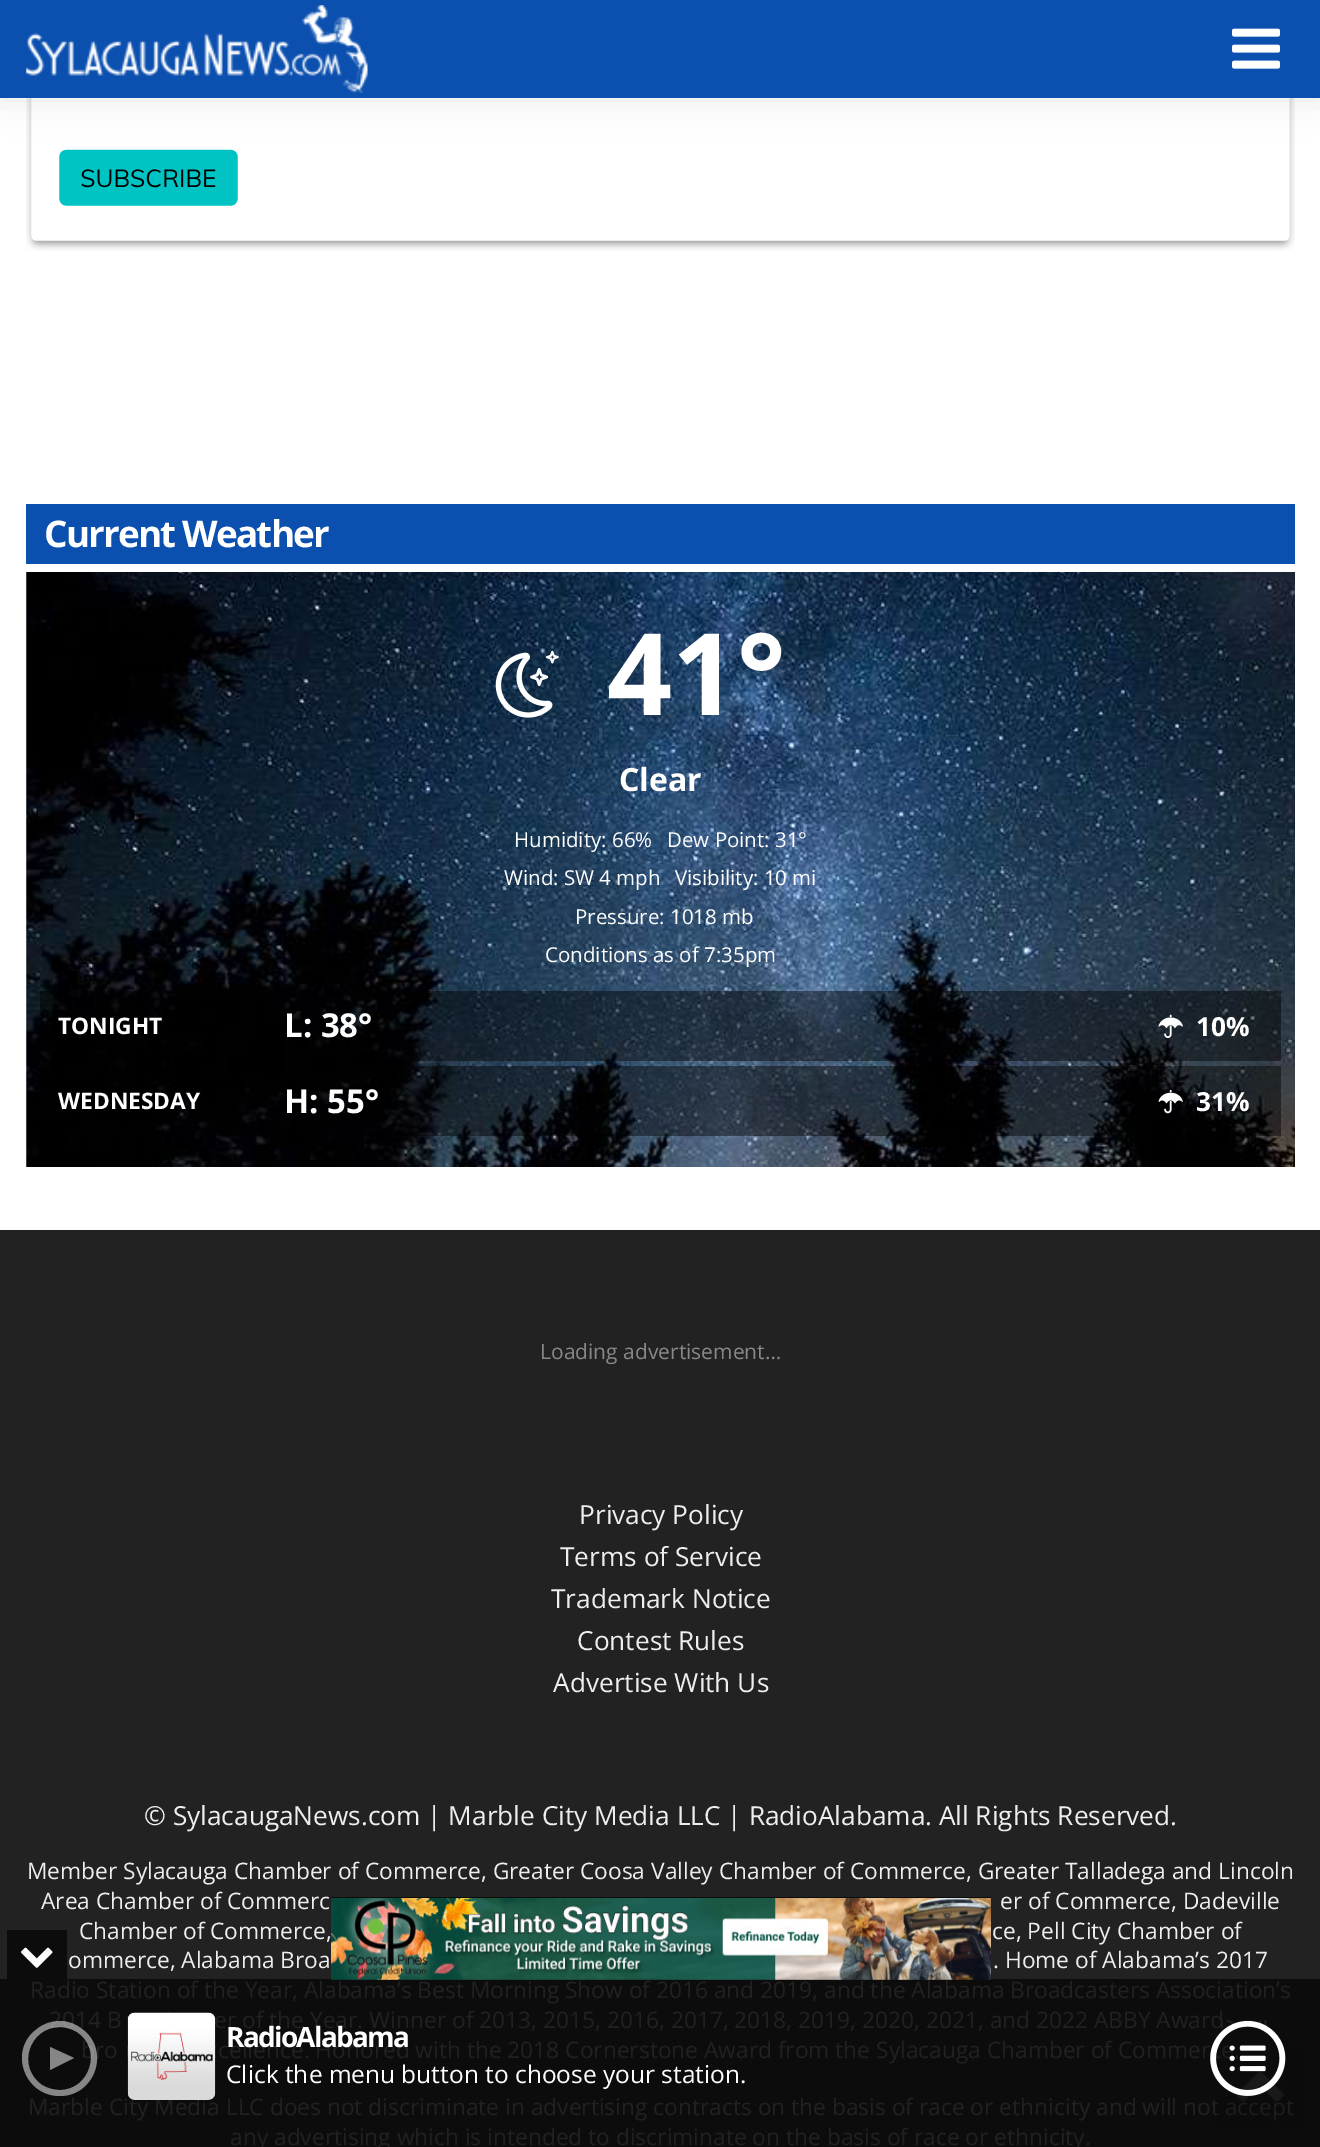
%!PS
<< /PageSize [1320 2147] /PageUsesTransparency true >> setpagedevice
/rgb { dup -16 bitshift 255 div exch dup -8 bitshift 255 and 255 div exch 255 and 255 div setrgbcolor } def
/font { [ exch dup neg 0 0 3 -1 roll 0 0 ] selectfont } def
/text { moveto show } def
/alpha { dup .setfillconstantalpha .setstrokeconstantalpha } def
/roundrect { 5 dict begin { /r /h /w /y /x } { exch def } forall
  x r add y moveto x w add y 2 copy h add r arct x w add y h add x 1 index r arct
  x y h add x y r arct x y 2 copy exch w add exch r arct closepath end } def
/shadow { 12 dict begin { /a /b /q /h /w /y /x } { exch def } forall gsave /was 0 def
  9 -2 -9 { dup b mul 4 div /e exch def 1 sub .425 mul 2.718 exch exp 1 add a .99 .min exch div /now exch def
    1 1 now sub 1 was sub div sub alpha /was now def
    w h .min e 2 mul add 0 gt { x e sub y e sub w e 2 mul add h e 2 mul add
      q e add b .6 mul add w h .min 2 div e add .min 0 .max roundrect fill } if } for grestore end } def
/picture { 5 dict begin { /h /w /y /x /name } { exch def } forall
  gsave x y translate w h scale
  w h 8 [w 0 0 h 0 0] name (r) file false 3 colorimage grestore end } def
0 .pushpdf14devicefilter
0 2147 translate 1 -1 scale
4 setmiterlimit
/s1 { /OpenSans-Bold 114 font 16#FFFFFF rgb } def
/s2 { /OpenSans-Bold 32 font 16#FFFFFF rgb } def
/s3 { /OpenSans-Regular 20.5 font 16#FFFFFF rgb } def
/s4 { /OpenSans-Bold 22.75 font 16#FFFFFF rgb } def
/s5 { /OpenSans-Bold 33 font 16#FFFFFF rgb } def
/s6 { /OpenSans-Bold 26.25 font 16#FFFFFF rgb } def
/s7 { /OpenSans-Regular 21 font 16#888888 rgb } def
/s8 { /OpenSans-Regular 26.25 font 16#EEEEEE rgb } def
/s9 { /OpenSans-Regular 22.75 font 16#EEEEEE rgb } def
/s10 { /OpenSans-Regular 22.75 font 16#212121 rgb } def
/s11 { /OpenSans-Regular 24.5 font 16#FFFFFF rgb } def
16#FFFFFF rgb
0 0 1320 2147 rectfill
(pic3.raw) 26 98 1269 153 picture
16#000000 rgb
0 0 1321 98 0 17.5 0.1 shadow
16#0C50AF rgb
0 0 1320 98 rectfill
(pic1.raw) 26 5 342 88 picture
(pic2.raw) 1232 28 48 41 picture
26 504 1269 60 rectfill
/OpenSans-Bold 36.75 font
16#FFFFFF rgb
44 547 moveto -1.75 0 (Current Weather) ashow
(pic4.raw) 26 572 1269 595 picture
(pic5.raw) 495 650 64 68 picture
s1
(41°) 607 715 text
s2
(Clear) 619 791 text
s3
(Humidity: 66%) 514 847 text
(Dew Point: 31°) 667 847 text
(Wind: SW 4 mph) 504 885 text
(Visibility: 10 mi) 675 885 text
(Pressure: 1018 mb) 575 924 text
(Conditions as of 7:35pm) 545 962 text
0.45 alpha
16#000000 rgb
40 991 1241 70 rectfill
1 alpha
s4
(TONIGHT) 58 1034 text
s5
(L: 38°) 284 1037 text
(pic6.raw) 1158 1014 25 25 picture
s6
(10%) 1196 1036 text
0.45 alpha
16#000000 rgb
58 1066 1223 70 rectfill
1 alpha
s4
(WEDNESDAY) 58 1109 text
s5
(H: 55°) 284 1113 text
(pic7.raw) 1158 1089 25 25 picture
s6
(31%) 1196 1111 text
16#222222 rgb
0 1230 1320 749 rectfill
16#0C0C0C rgb
0 1979 1320 168 rectfill
s7
(Loading advertisement…) 540 1359 text
s8
(Privacy Policy) 579 1524 text
(Terms of Service) 560 1566 text
(Trademark Notice) 551 1608 text
(Contest Rules) 577 1650 text
(Advertise With Us) 553 1692 text
(© SylacaugaNews.com | Marble City Media LLC | RadioAlabama. All Rights Reserved.) 144 1825 text
s9
(Member Sylacauga Chamber of Commerce, Greater Coosa Valley Chamber of Commerce, Greater Talladega and Lincoln) 27 1879 text
(Area Chamber of Commerc) 41 1909 text
(er of Commerce, Dadeville) 1000 1909 text
(Chamber of Commerce,) 79 1939 text
(ce, Pell City Chamber of) 992 1939 text
(ommerce, Alabama Broa) 68 1968 text
(. Home of Alabama’s 2017) 993 1968 text
s10
(Radio Station of the Year, Alabama’s Best Morning Show of 2016 and 2019, and the Alabama Broadcasters Association’s) 30 1998 text
(2014 B) 49 2028 text
(er of the Year. Winner of 2013, 2015, 2016, 2017, 2018, 2019, 2020, 2021, and 2022 ABBY Award) 214 2028 text
(bro) 81 2058 text
(cellence. Honored with the 2018 Cornerstone Award from the Sylacauga Chamber of Commer) 218 2058 text
(.) 1234 2058 text
(Marble City Media LLC does not discriminate in advertising contracts on the basis of race or ethnicity and will not accept) 28 2115 text
(any advertising which is intended to discriminate on the basis of race or ethnicity.) 230 2145 text
0.18 alpha
16#090909 rgb
1216 2042 88 88 9 roundrect fill
1 alpha
(pic8.raw) 1236 2071 48 31 picture
0.9 alpha
16#0A0A0A rgb
7 1930 60 49 rectfill
1 alpha
(pic9.raw) 21 1947 32 21 picture
0.9 alpha
331 1897 660 1 rectfill
1 alpha
(pic10.raw) 331 1898 660 82 picture
0.5 alpha
16#FFFFFF rgb
60 2021 moveto 51 2021 43 2024 37 2029 curveto 8 2050 24 2096 60 2096 curveto 95 2096 111 2050 82 2029 curveto 76 2024 68 2021 60 2021 curveto closepath 60 2090 moveto 53 2090 47 2088 42 2085 curveto 16 2067 29 2027 60 2027 curveto 66 2027 72 2029 77 2032 curveto 103 2049 90 2090 60 2090 curveto closepath 50 2070 moveto 74 2058 lineto 50 2047 lineto closepath fill
1 alpha
(pic11.raw) 127 2012 89 88 picture
/OpenSans-Bold 28 font
226 2047 moveto -1.75 0 (RadioAlabama) ashow
s11
(Click the menu button to choose your station.) 226 2083 text
(pic12.raw) 1210 2020 76 76 picture
.poppdf14devicefilter showpage
